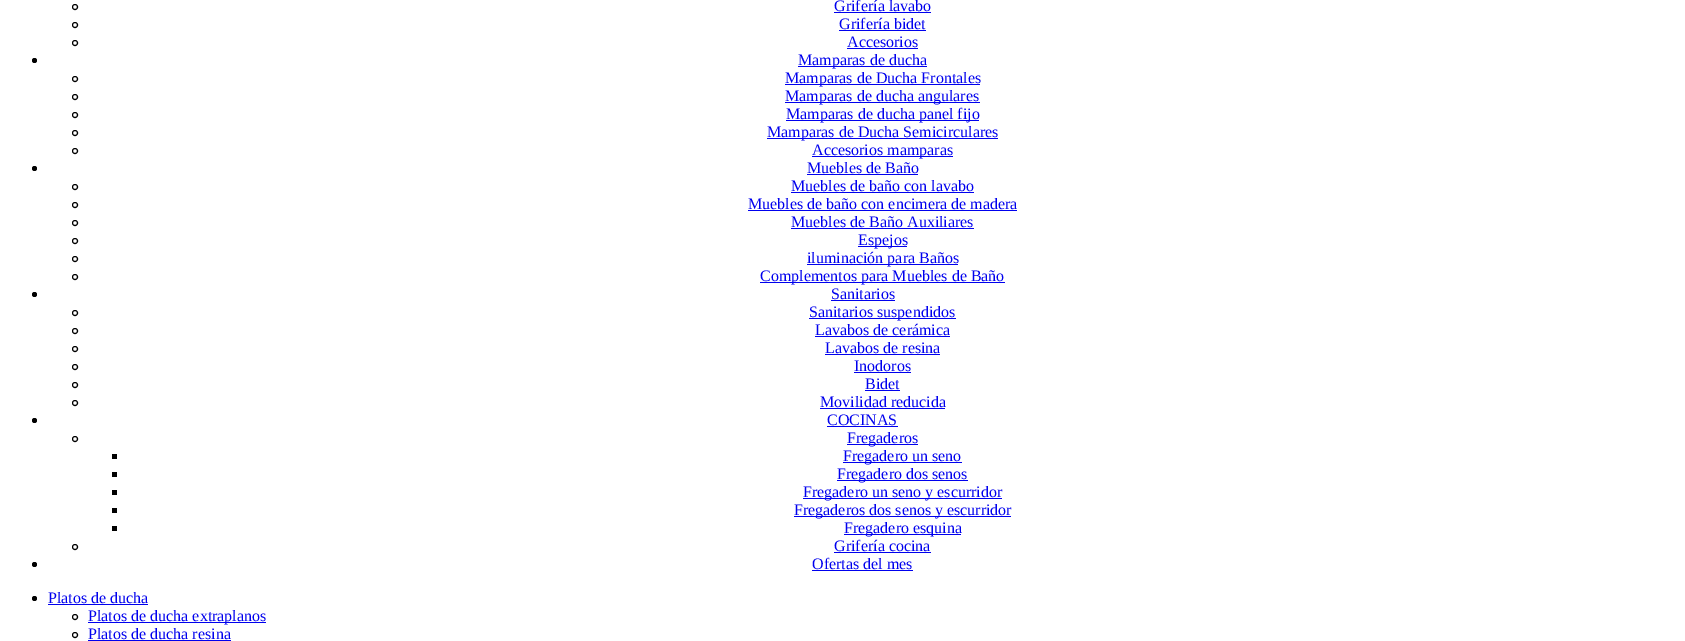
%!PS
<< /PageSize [1685 641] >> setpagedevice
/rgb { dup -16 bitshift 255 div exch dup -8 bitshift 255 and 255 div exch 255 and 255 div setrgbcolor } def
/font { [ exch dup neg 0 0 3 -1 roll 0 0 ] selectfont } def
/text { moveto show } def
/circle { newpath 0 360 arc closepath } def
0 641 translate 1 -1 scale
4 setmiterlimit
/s1 { /LiberationSerif-Regular 16 font 16#0000EE rgb } def
16#FFFFFF rgb
0 0 1685 641 rectfill
16#000000 rgb
75 7 2.5 circle stroke
s1
(Grifería lavabo) 834 11 text
834 12 97 1 rectfill
16#000000 rgb
75 25 2.5 circle stroke
s1
(Grifería bidet) 839 29 text
839 30 87 1 rectfill
16#000000 rgb
75 43 2.5 circle stroke
s1
(Accesorios) 847 47 text
847 48 71 1 rectfill
16#000000 rgb
34.5 60.5 2.5 circle fill
16#0000EE rgb
798 66 129 1 rectfill
(Mamparas de ducha) 798 65 text
16#000000 rgb
75 79 2.5 circle stroke
16#0000EE rgb
785 84 195 1 rectfill
(Mamparas de Ducha Frontales) 785 83 text
16#000000 rgb
75 97 2.5 circle stroke
16#0000EE rgb
785 102 195 1 rectfill
(Mamparas de ducha angulares) 785 101 text
16#000000 rgb
75 115 2.5 circle stroke
16#0000EE rgb
786 120 193 1 rectfill
(Mamparas de ducha panel fijo) 786 119 text
16#000000 rgb
75 133 2.5 circle stroke
16#0000EE rgb
767 138 231 1 rectfill
(Mamparas de Ducha Semicirculares) 767 137 text
16#000000 rgb
75 151 2.5 circle stroke
16#0000EE rgb
812 156 141 1 rectfill
(Accesorios mamparas) 812 155 text
16#000000 rgb
34.5 168.5 2.5 circle fill
s1
(Muebles de Baño) 807 173 text
807 174 111 1 rectfill
16#000000 rgb
75 187 2.5 circle stroke
s1
(Muebles de baño con lavabo) 791 191 text
791 192 183 1 rectfill
16#000000 rgb
75 205 2.5 circle stroke
s1
(Muebles de baño con encimera de madera) 748 209 text
748 210 269 1 rectfill
16#000000 rgb
75 223 2.5 circle stroke
s1
(Muebles de Baño Auxiliares) 791 227 text
791 228 183 1 rectfill
16#000000 rgb
75 241 2.5 circle stroke
16#0000EE rgb
858 246 49 1 rectfill
(Espejos) 858 245 text
16#000000 rgb
75 259 2.5 circle stroke
16#0000EE rgb
807 264 151 1 rectfill
(iluminación para Baños) 807 263 text
16#000000 rgb
75 277 2.5 circle stroke
16#0000EE rgb
760 282 245 1 rectfill
(Complementos para Muebles de Baño) 760 281 text
16#000000 rgb
34.5 294.5 2.5 circle fill
s1
(Sanitarios) 831 299 text
831 300 64 1 rectfill
16#000000 rgb
75 313 2.5 circle stroke
16#0000EE rgb
809 318 147 1 rectfill
(Sanitarios suspendidos) 809 317 text
16#000000 rgb
75 331 2.5 circle stroke
s1
(Lavabos de cerámica) 815 335 text
815 336 135 1 rectfill
16#000000 rgb
75 349 2.5 circle stroke
s1
(Lavabos de resina) 825 353 text
825 354 115 1 rectfill
16#000000 rgb
75 367 2.5 circle stroke
s1
(Inodoros) 854 371 text
854 372 57 1 rectfill
16#000000 rgb
75 385 2.5 circle stroke
s1
(Bidet) 865 389 text
865 390 35 1 rectfill
16#000000 rgb
75 403 2.5 circle stroke
s1
(Movilidad reducida) 820 407 text
820 408 125 1 rectfill
16#000000 rgb
34.5 420.5 2.5 circle fill
s1
(COCINAS) 827 425 text
827 426 71 1 rectfill
16#000000 rgb
75 439 2.5 circle stroke
16#0000EE rgb
847 444 71 1 rectfill
(Fregaderos) 847 443 text
16#000000 rgb
112 454 5 5 rectfill
16#0000EE rgb
843 462 119 1 rectfill
(Fregadero un seno) 843 461 text
16#000000 rgb
112 472 5 5 rectfill
16#0000EE rgb
837 480 131 1 rectfill
(Fregadero dos senos) 837 479 text
16#000000 rgb
112 490 5 5 rectfill
16#0000EE rgb
803 498 199 1 rectfill
(Fregadero un seno y escurridor) 803 497 text
16#000000 rgb
112 508 5 5 rectfill
16#0000EE rgb
794 516 217 1 rectfill
(Fregaderos dos senos y escurridor) 794 515 text
16#000000 rgb
112 526 5 5 rectfill
16#0000EE rgb
844 534 117 1 rectfill
(Fregadero esquina) 844 533 text
16#000000 rgb
75 547 2.5 circle stroke
s1
(Grifería cocina) 834 551 text
834 552 97 1 rectfill
16#000000 rgb
34.5 564.5 2.5 circle fill
s1
(Ofertas del mes) 812 569 text
812 570 101 1 rectfill
16#000000 rgb
34.5 598.5 2.5 circle fill
s1
(Platos de ducha) 48 603 text
48 604 100 1 rectfill
16#000000 rgb
75 617 2.5 circle stroke
16#0000EE rgb
88 622 178 1 rectfill
(Platos de ducha extraplanos) 88 621 text
16#000000 rgb
75 635 2.5 circle stroke
s1
(Platos de ducha resina) 88 639 text
88 640 143 1 rectfill
showpage
